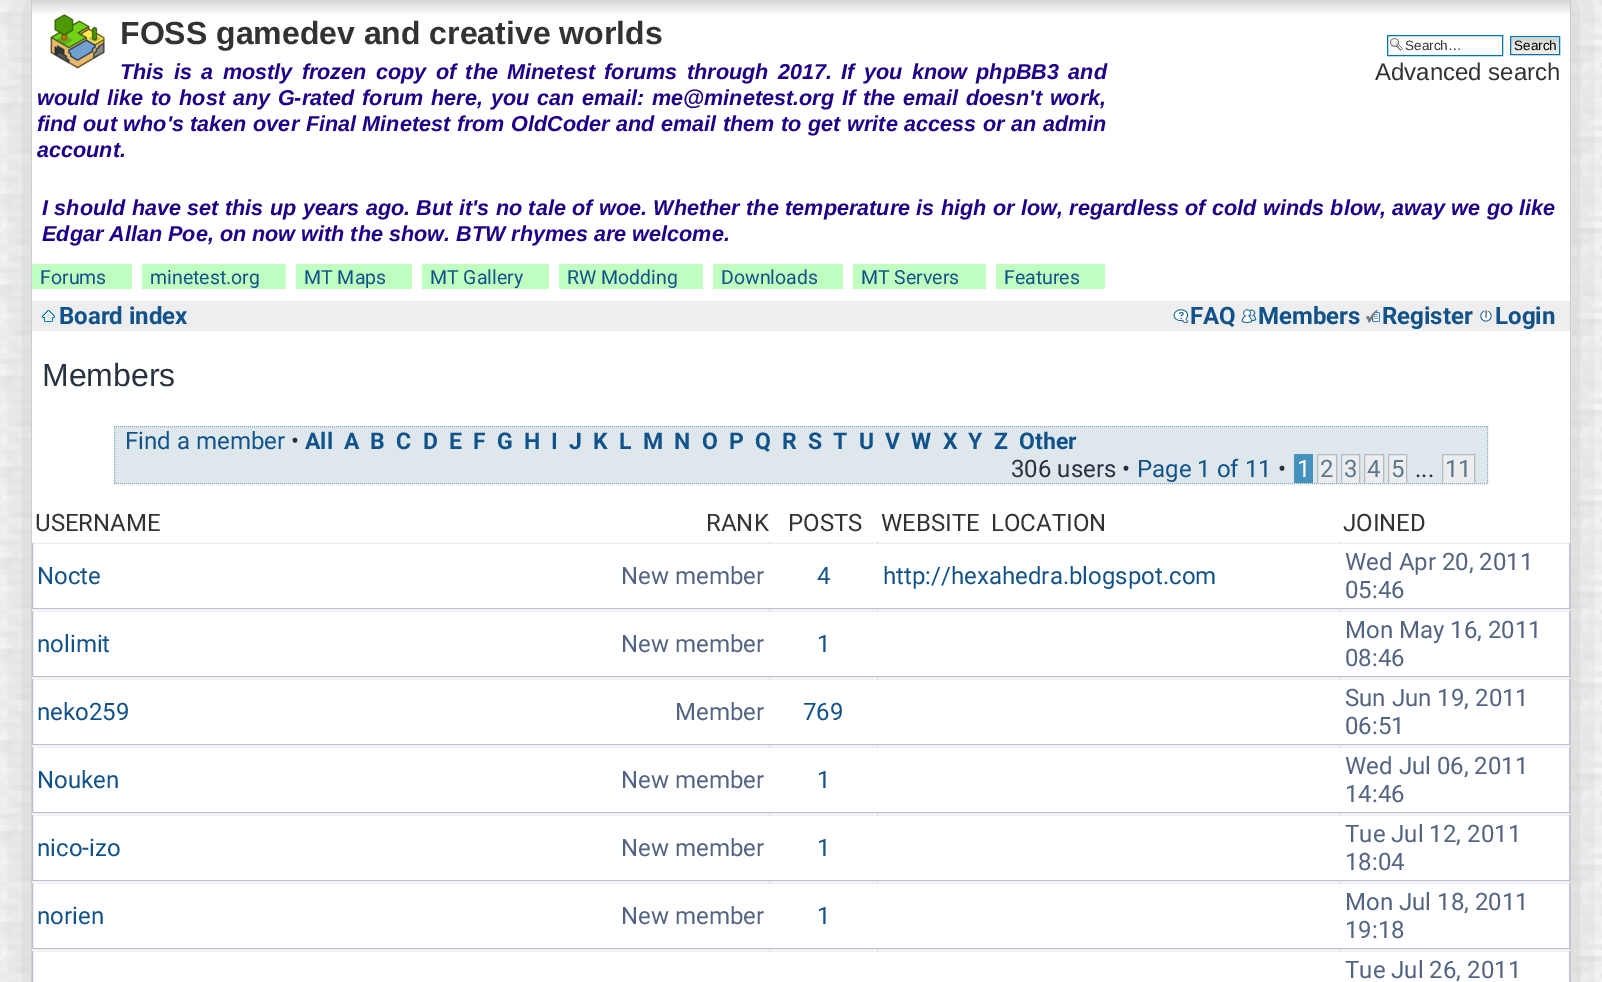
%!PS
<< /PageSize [1602 982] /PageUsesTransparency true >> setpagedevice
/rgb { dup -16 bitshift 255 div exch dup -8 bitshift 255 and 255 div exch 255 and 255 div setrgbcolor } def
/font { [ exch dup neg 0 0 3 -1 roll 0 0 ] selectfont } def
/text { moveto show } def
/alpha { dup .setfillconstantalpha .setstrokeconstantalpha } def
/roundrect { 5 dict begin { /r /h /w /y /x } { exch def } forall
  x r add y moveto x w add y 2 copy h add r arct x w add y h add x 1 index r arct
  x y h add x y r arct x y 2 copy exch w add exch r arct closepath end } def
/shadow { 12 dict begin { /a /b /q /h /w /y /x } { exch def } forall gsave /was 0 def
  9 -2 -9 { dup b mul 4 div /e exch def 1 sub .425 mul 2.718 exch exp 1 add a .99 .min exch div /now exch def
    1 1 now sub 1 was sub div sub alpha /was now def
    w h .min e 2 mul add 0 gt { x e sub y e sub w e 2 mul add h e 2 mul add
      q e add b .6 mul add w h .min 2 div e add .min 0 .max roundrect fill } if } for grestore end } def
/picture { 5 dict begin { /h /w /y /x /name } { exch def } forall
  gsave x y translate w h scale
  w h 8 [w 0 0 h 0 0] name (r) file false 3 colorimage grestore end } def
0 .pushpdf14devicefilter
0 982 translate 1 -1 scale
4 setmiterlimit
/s1 { /LiberationSans-Bold 32 font 16#323232 rgb } def
/s2 { /LiberationSans-BoldItalic 21.6 font 16#200088 rgb } def
/s3 { /LiberationSans-Regular 13.5 font 16#323232 rgb } def
/s4 { /LiberationSans-Regular 13.5 font 16#000000 rgb } def
/s5 { /LiberationSans-Regular 24 font 16#323232 rgb } def
/s6 { /Roboto-Regular 19.5 font 16#105289 rgb } def
/s7 { /Roboto-Bold 24 font 16#105289 rgb } def
/s8 { /LiberationSans-Regular 32 font 16#28313F rgb } def
/s9 { /Roboto-Regular 24 font 16#105289 rgb } def
/s10 { /Roboto-Regular 24 font 16#28313F rgb } def
/s11 { /Roboto-Bold 23 font 16#105289 rgb } def
/s12 { /Roboto-Regular 24 font 16#FFFFFF rgb } def
/s13 { /Roboto-Regular 24 font 16#5C758C rgb } def
/s14 { /Roboto-Regular 24 font 16#323232 rgb } def
/s15 { /Roboto-Regular 24 font 16#536482 rgb } def
16#FFFFFF rgb
0 0 1602 982 rectfill
(pic1.raw) 0 0 1602 982 picture
16#CCCCCC rgb
29 -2 1544 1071 0 29 1 shadow
16#FFFFFF rgb
32 60 1538 922 rectfill
16#CCCCCC rgb
1570 0 1 982 rectfill
31 0 1 982 rectfill
gsave 32 0 moveto 1570 0 lineto 1570 60 lineto 32 60 lineto closepath clip newpath
<< /ShadingType 2 /ColorSpace /DeviceRGB /Coords [801 0 801 60] /Extend [true true] /Function << /FunctionType 3 /Domain [0 1] /Functions [<< /FunctionType 2 /Domain [0 1] /C0 [0.831 0.831 0.831] /C1 [1 1 1] /N 1 >> << /FunctionType 2 /Domain [0 1] /C0 [1 1 1] /C1 [1 1 1] /N 1 >>] /Bounds [0.25] /Encode [0 1 0 1] >> >> shfill grestore
(pic2.raw) 50 14 55 55 picture
s1
(FOSS gamedev and creative worlds) 120 44 text
/LiberationSans-BoldItalic 21.6 font
16#200088 rgb
120 79 moveto 3.4 0 32 (This is a mostly frozen copy of the Minetest forums through 2017. If you know phpBB3 and) widthshow
37 105 moveto 1.8 0 32 (would like to host any G-rated forum here, you can email: me@minetest.org If the email doesn't work,) widthshow
37 131 moveto 0.6 0 32 (find out who's taken over Final Minetest from OldCoder and email them to get write access or an admin) widthshow
(account.) 37 157 text
(pic3.raw) 1390 38 13 13 picture
16#0075B0 rgb
1387.5 35.5 115 20 rectstroke
s3
(Search…) 1405 50 text
(pic4.raw) 1511 37 48 17 picture
16#0075B0 rgb
1510.5 36.5 49 18 rectstroke
s4
(Search) 1514 50 text
s5
(Advanced search) 1375 80 text
/LiberationSans-BoldItalic 21.6 font
16#200088 rgb
42 215 moveto 0.45 0 32 (I should have set this up years ago. But it's no tale of woe. Whether the temperature is high or low, regardless of cold winds blow, away we go like) widthshow
(Edgar Allan Poe, on now with the show. BTW rhymes are welcome.) 42 241 text
16#C0FFC0 rgb
32 264 100 25 rectfill
s6
(Forums) 40 284 text
16#C0FFC0 rgb
142 264 144 25 rectfill
s6
(minetest.org) 150 284 text
16#C0FFC0 rgb
296 264 116 25 rectfill
s6
(MT Maps) 304 284 text
16#C0FFC0 rgb
422 264 127 25 rectfill
s6
(MT Gallery) 430 284 text
16#C0FFC0 rgb
559 264 144 25 rectfill
s6
(RW Modding) 567 284 text
16#C0FFC0 rgb
713 264 130 25 rectfill
s6
(Downloads) 721 284 text
16#C0FFC0 rgb
853 264 133 25 rectfill
s6
(MT Servers) 861 284 text
16#C0FFC0 rgb
996 264 109 25 rectfill
s6
(Features) 1004 284 text
16#EEEEEE rgb
32 301 1538 30 rectfill
(pic5.raw) 42 310 13 12 picture
s7
(Board index) 59 324 text
(pic6.raw) 1173 309 16 14 picture
(FAQ) 1190 324 text
(pic7.raw) 1241 309 16 14 picture
(Members) 1258 324 text
(pic8.raw) 1366 310 14 13 picture
(Register) 1382 324 text
(pic9.raw) 1480 310 12 12 picture
(Login) 1495 324 text
s8
(Members) 42 386 text
16#DEE7EC rgb
114 426 1374 58 rectfill
16#8CACBB rgb
[1 1] 0 setdash
114 426.5 moveto 1488 426.5 lineto stroke
1487.5 426 moveto 1487.5 484 lineto stroke
114 483.5 moveto 1488 483.5 lineto stroke
114.5 426 moveto 114.5 484 lineto stroke
s9
(Find a member) 125 449 text
s10
(•) 291 449 text
s11
(All) 305 449 text
(A) 344 449 text
(B) 370 449 text
(C) 396 449 text
(D) 423 449 text
(E) 449 449 text
(F) 473 449 text
(G) 497 449 text
(H) 524 449 text
(I) 551 449 text
(J) 569 449 text
(K) 593 449 text
(L) 619 449 text
(M) 643 449 text
(N) 674 449 text
(O) 702 449 text
(P) 729 449 text
(Q) 755 449 text
(R) 782 449 text
(S) 808 449 text
(T) 833 449 text
(U) 859 449 text
(V) 885 449 text
(W) 911 449 text
(X) 943 449 text
(Y) 968 449 text
(Z) 994 449 text
(Other) 1019 449 text
s10
(306 users •) 1011 477 text
s9
(Page 1 of 11) 1137 477 text
s10
(•) 1278 477 text
16#4692BF rgb
1294 454 19 29 rectfill
s12
(1) 1297 477 text
16#ECEDEE rgb
1318 455 18 28 rectfill
gsave
125 427 1352 56 rectclip
16#B4BAC0 rgb
[] 0 setdash
1317.5 454.5 19 29 rectstroke
grestore
s13
(2) 1320 477 text
16#ECEDEE rgb
1342 455 17 28 rectfill
gsave
125 427 1352 56 rectclip
16#B4BAC0 rgb
[] 0 setdash
1341.5 454.5 18 29 rectstroke
grestore
s13
(3) 1344 477 text
16#ECEDEE rgb
1365 455 18 28 rectfill
gsave
125 427 1352 56 rectclip
16#B4BAC0 rgb
[] 0 setdash
1364.5 454.5 19 29 rectstroke
grestore
s13
(4) 1367 477 text
16#ECEDEE rgb
1389 455 17 28 rectfill
gsave
125 427 1352 56 rectclip
16#B4BAC0 rgb
[] 0 setdash
1388.5 454.5 18 29 rectstroke
grestore
s13
(5) 1391 477 text
16#ECEDEE rgb
1443 455 31 28 rectfill
gsave
125 427 1352 56 rectclip
16#B4BAC0 rgb
[] 0 setdash
1442.5 454.5 32 29 rectstroke
grestore
s13
(11) 1445 477 text
s10
(...) 1415 477 text
s14
(USERNAME) 35 531 text
(RANK) 706 531 text
(POSTS) 788 531 text
(WEBSITE) 881 531 text
(LOCATION) 991 531 text
(JOINED) 1343 531 text
16#BFC1CF rgb
[] 0 setdash
32.5 542.5 1537 66 rectstroke
16#FAFAFA rgb
32 542 737 1 rectfill
s9
(Nocte) 37 584 text
s15
(New member) 621 584 text
16#FAFAFA rgb
770 542 107 1 rectfill
s9
(4) 817 584 text
16#FAFAFA rgb
878 542 461 1 rectfill
s9
(http://hexahedra.blogspot.com) 883 584 text
16#FAFAFA rgb
1340 542 230 1 rectfill
s15
(Wed Apr 20, 2011) 1345 570 text
(05:46) 1345 598 text
16#BFC1CF rgb
32.5 610.5 1537 66 rectstroke
16#FAFAFA rgb
878 610 461 1 rectfill
32 610 737 1 rectfill
s9
(nolimit) 37 652 text
s15
(New member) 621 652 text
16#FAFAFA rgb
770 610 107 1 rectfill
s9
(1) 817 652 text
16#FAFAFA rgb
1340 610 230 1 rectfill
s15
(Mon May 16, 2011) 1345 638 text
(08:46) 1345 666 text
16#BFC1CF rgb
32.5 678.5 1537 66 rectstroke
16#FAFAFA rgb
878 678 461 1 rectfill
32 678 737 1 rectfill
s9
(neko259) 37 720 text
s15
(Member) 675 720 text
16#FAFAFA rgb
770 678 107 1 rectfill
s9
(769) 803 720 text
16#FAFAFA rgb
1340 678 230 1 rectfill
s15
(Sun Jun 19, 2011) 1345 706 text
(06:51) 1345 734 text
16#BFC1CF rgb
32.5 746.5 1537 66 rectstroke
16#FAFAFA rgb
878 746 461 1 rectfill
32 746 737 1 rectfill
s9
(Nouken) 37 788 text
s15
(New member) 621 788 text
16#FAFAFA rgb
770 746 107 1 rectfill
s9
(1) 817 788 text
16#FAFAFA rgb
1340 746 230 1 rectfill
s15
(Wed Jul 06, 2011) 1345 774 text
(14:46) 1345 802 text
16#BFC1CF rgb
32.5 814.5 1537 66 rectstroke
16#FAFAFA rgb
878 814 461 1 rectfill
32 814 737 1 rectfill
s9
(nico-izo) 37 856 text
s15
(New member) 621 856 text
16#FAFAFA rgb
770 814 107 1 rectfill
s9
(1) 817 856 text
16#FAFAFA rgb
1340 814 230 1 rectfill
s15
(Tue Jul 12, 2011) 1345 842 text
(18:04) 1345 870 text
16#BFC1CF rgb
32.5 882.5 1537 66 rectstroke
16#FAFAFA rgb
878 882 461 1 rectfill
32 882 737 1 rectfill
s9
(norien) 37 924 text
s15
(New member) 621 924 text
16#FAFAFA rgb
770 882 107 1 rectfill
s9
(1) 817 924 text
16#FAFAFA rgb
1340 882 230 1 rectfill
s15
(Mon Jul 18, 2011) 1345 910 text
(19:18) 1345 938 text
16#BFC1CF rgb
32.5 950.5 1537 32 rectstroke
16#FAFAFA rgb
32 950 737 1 rectfill
770 950 107 1 rectfill
878 950 461 1 rectfill
1340 950 230 1 rectfill
s15
(Tue Jul 26, 2011) 1345 978 text
.poppdf14devicefilter showpage
